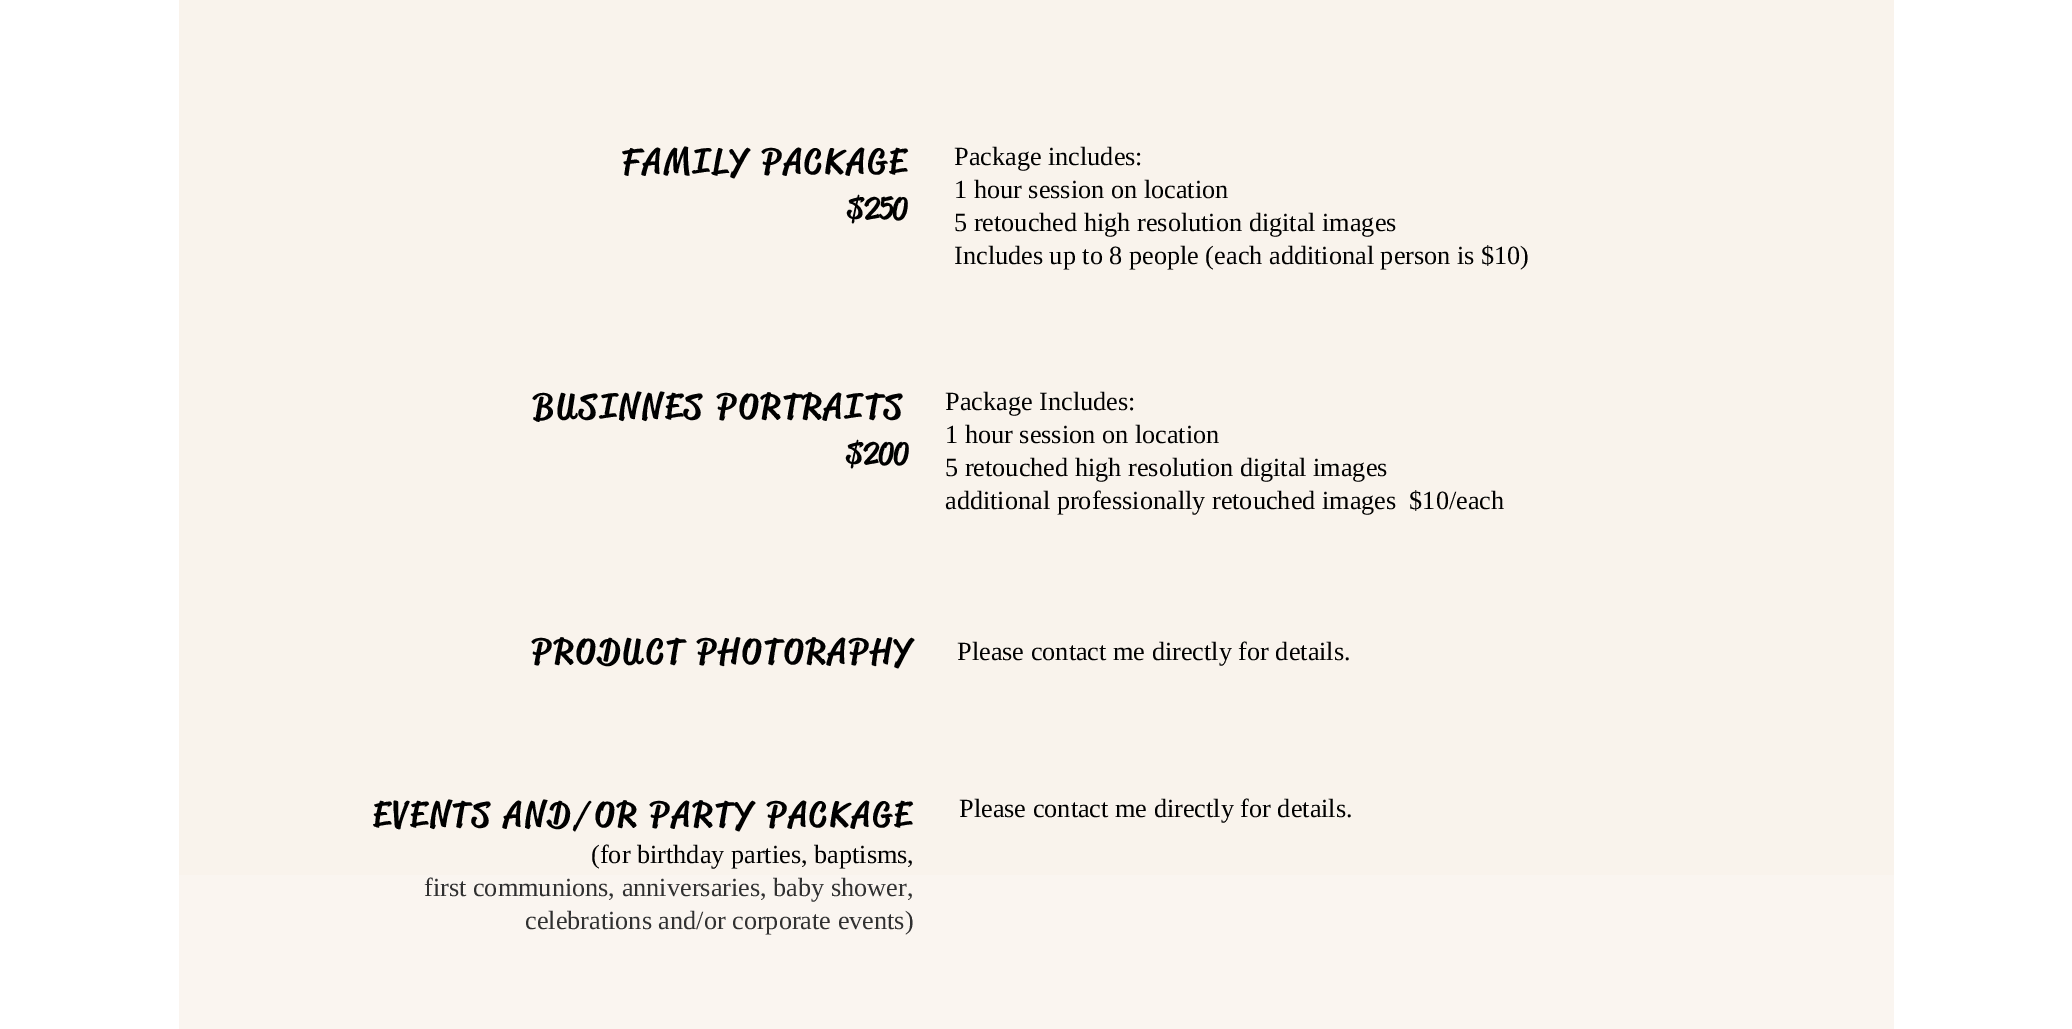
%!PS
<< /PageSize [2072 1029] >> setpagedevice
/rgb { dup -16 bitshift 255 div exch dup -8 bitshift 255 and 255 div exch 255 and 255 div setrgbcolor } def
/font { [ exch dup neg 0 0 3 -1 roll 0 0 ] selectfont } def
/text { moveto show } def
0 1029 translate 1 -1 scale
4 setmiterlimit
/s1 { /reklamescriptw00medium-Medium 31.5 font 16#000000 rgb } def
/s2 { /LiberationSerif-Regular 26.25 font 16#000000 rgb } def
/s3 { /LiberationSerif-Regular 26.25 font 16#303030 rgb } def
16#FFFFFF rgb
0 0 2072 1029 rectfill
16#F9F3EC rgb
179 0 1715 875 rectfill
16#FAF5F0 rgb
179 875 1715 154 rectfill
/reklamescriptw00medium-Medium 35 font
16#000000 rgb
622 173 moveto 3.5 0 (FAMILY PACKAGE) ashow
s1
($250) 846 219 text
s2
(Package includes:) 954 165 text
(1 hour session on location) 954 198 text
(5 retouched high resolution digital images) 954 231 text
(Includes up to 8 people \(each additional person is $10\)) 954 264 text
/reklamescriptw00medium-Medium 35 font
533 418 moveto 3.5 0 (BUSINNES PORTRAITS) ashow
s1
($200) 845 464 text
s2
(Package Includes:) 945 410 text
(1 hour session on location) 945 443 text
(5 retouched high resolution digital images) 945 476 text
(additional professionally retouched images  $10/each) 945 509 text
/reklamescriptw00medium-Medium 35 font
532 663 moveto 3.5 0 (PRODUCT PHOTORAPHY) ashow
s2
(Please contact me directly for details.) 957 660 text
/reklamescriptw00medium-Medium 35 font
373 826 moveto 3.5 0 (EVENTS AND/OR PARTY PACKAGE) ashow
s2
(\(for birthday parties, baptisms,) 591 863 text
s3
(first communions, anniversaries, baby shower,) 424 896 text
(celebrations and/or corporate events\)) 525 929 text
s2
(Please contact me directly for details.) 959 817 text
showpage
